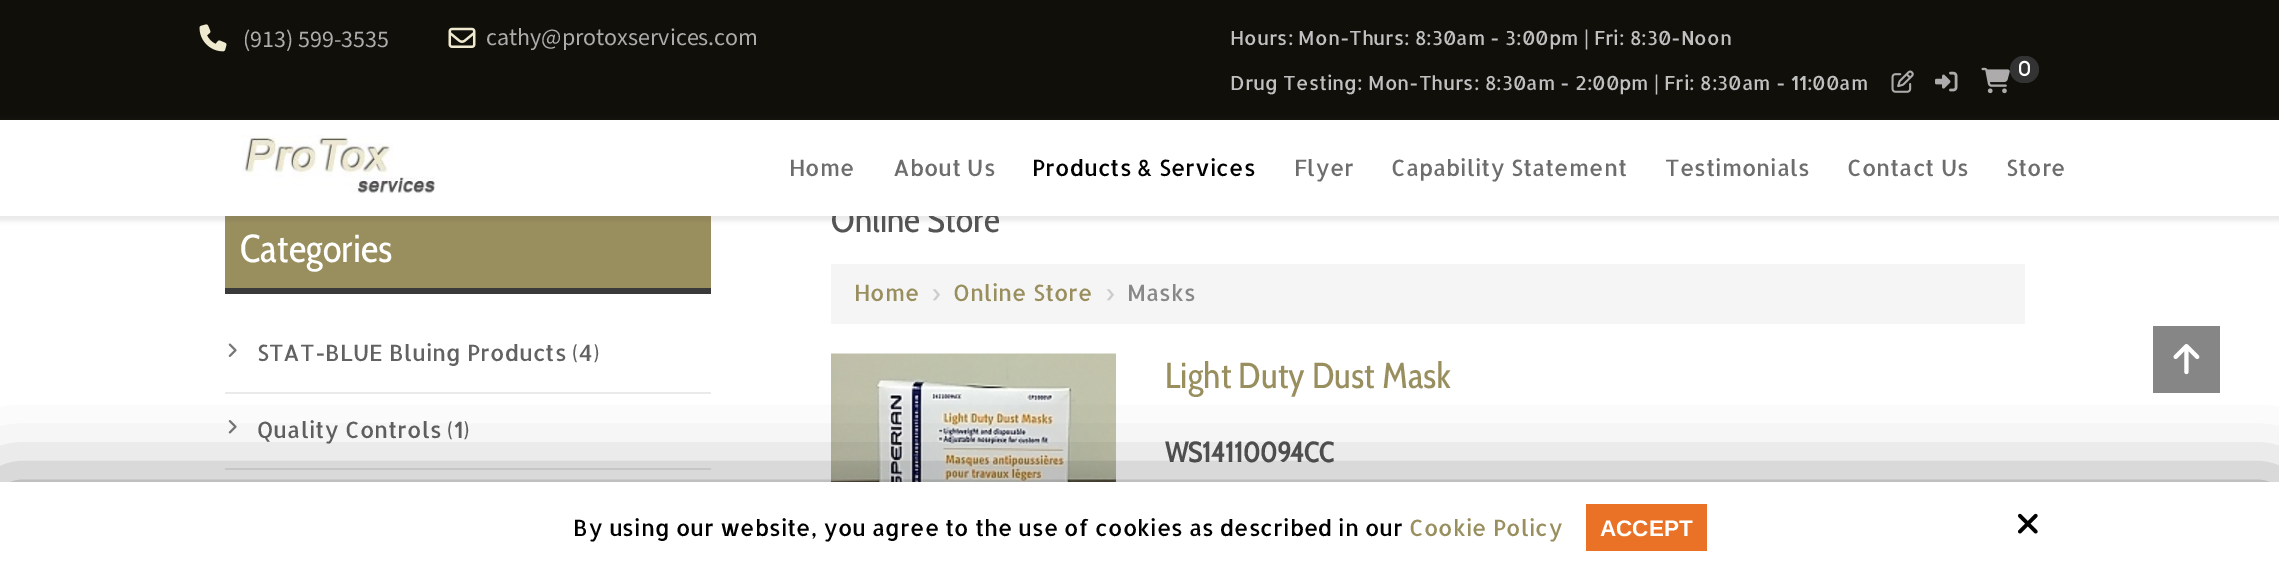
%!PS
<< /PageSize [2279 565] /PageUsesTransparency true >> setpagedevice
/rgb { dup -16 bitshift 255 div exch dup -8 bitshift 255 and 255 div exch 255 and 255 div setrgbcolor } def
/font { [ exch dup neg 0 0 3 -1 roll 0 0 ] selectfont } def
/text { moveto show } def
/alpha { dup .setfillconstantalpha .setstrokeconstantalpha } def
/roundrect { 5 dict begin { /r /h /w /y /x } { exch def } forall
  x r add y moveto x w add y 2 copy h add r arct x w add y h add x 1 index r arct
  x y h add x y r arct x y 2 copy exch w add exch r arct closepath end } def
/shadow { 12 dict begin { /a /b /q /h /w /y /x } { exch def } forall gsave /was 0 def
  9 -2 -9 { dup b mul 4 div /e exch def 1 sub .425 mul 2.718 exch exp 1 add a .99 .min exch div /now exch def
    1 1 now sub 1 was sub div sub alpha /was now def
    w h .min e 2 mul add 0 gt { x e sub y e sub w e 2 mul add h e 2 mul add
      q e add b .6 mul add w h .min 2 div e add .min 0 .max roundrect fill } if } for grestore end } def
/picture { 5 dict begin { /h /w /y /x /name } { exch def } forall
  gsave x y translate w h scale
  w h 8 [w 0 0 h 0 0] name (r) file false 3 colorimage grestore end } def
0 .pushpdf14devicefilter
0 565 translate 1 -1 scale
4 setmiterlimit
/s1 { /Mada-Regular 24 font 16#ADABAB rgb } def
/s2 { /Allerta-Regular 19.5 font 16#C0C0C0 rgb } def
/s3 { /CabinCondensed-Regular 36 font 16#545454 rgb } def
/s4 { /Allerta-Regular 22.5 font 16#6D6D6D rgb } def
/s5 { /Allerta-Regular 22.5 font 16#000000 rgb } def
/s6 { /CabinCondensed-Regular 39 font 16#FFFFFF rgb } def
/s7 { /Allerta-Regular 22.5 font 16#636262 rgb } def
/s8 { /Allerta-Regular 22.5 font 16#998E5E rgb } def
/s9 { /Allerta-Regular 22.5 font 16#CCCCCC rgb } def
/s10 { /Allerta-Regular 22.5 font 16#888888 rgb } def
/s11 { /CabinCondensed-Regular 36 font 16#998E5E rgb } def
/s12 { /CabinCondensed-Bold 28 font 16#545454 rgb } def
/s13 { /LiberationSans-Bold 22.5 font 16#FFFFFF rgb } def
16#FFFFFF rgb
0 0 2279 565 rectfill
16#100F0A rgb
0 0 2279 120 rectfill
(pic1.raw) 199 24 28 28 picture
s1
(\(913\) 599-3535) 243 47 text
(pic2.raw) 448 27 28 21 picture
(cathy@protoxservices.com) 486 45 text
s2
(Hours: Mon-Thurs: 8:30am - 3:00pm | Fri: 8:30-Noon) 1230 45 text
(Drug Testing: Mon-Thurs: 8:30am - 2:00pm | Fri: 8:30am - 11:00am) 1230 90 text
(pic3.raw) 1891 70 23 23 picture
(pic4.raw) 1935 71 23 21 picture
(pic5.raw) 1981 67 29 27 picture
16#333333 rgb
2010 56 29 27 13.5 roundrect fill
(pic6.raw) 2019 60 11 17 picture
16#998E5E rgb
225 216 486 72 rectfill
16#34373E rgb
-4 116 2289 105 0 2 0.1 shadow
s3
(Online Store) 831 232 text
16#FFFFFF rgb
0 120 2279 96 rectfill
(pic7.raw) 242 135 193 59 picture
s4
(Home) 789 176 text
(About Us) 893 176 text
s5
(Products & Services) 1032 176 text
s4
(Flyer) 1294 176 text
(Capability Statement) 1391 176 text
(Testimonials) 1665 176 text
(Contact Us) 1847 176 text
(Store) 2006 176 text
16#3A3A3A rgb
225 288 486 6 rectfill
s6
(Categories) 240 262 text
16#EAEAEA rgb
225 392 486 2 rectfill
(pic8.raw) 228 343 9 14 picture
s7
(STAT-BLUE Bluing Products \(4\)) 257 361 text
16#EAEAEA rgb
225 468 486 2 rectfill
(pic9.raw) 228 420 9 14 picture
s7
(Quality Controls \(1\)) 257 438 text
16#F5F5F5 rgb
831 264 1194 60 rectfill
s8
(Home) 854 301 text
s9
(›) 931 301 text
s8
(Online Store) 953 301 text
s9
(›) 1105 301 text
s10
(Masks) 1127 301 text
(pic10.raw) 831 353 285 129 picture
s11
(Light Duty Dust Mask) 1165 388 text
s12
(WS14110094CC) 1165 462 text
16#868686 rgb
2153 326 67 67 rectfill
(pic11.raw) 2173 344 27 31 picture
16#000000 rgb
0 489 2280 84 0 37.5 0.5 shadow
16#FFFFFF rgb
0 482 2279 83 rectfill
s5
(By using our website, you agree to the use of cookies as described in our) 573 536 text
s8
(Cookie Policy) 1409 536 text
16#E97226 rgb
1586 504 121 47 rectfill
s13
(ACCEPT) 1600 536 text
(pic12.raw) 2018 513 20 21 picture
.poppdf14devicefilter showpage
